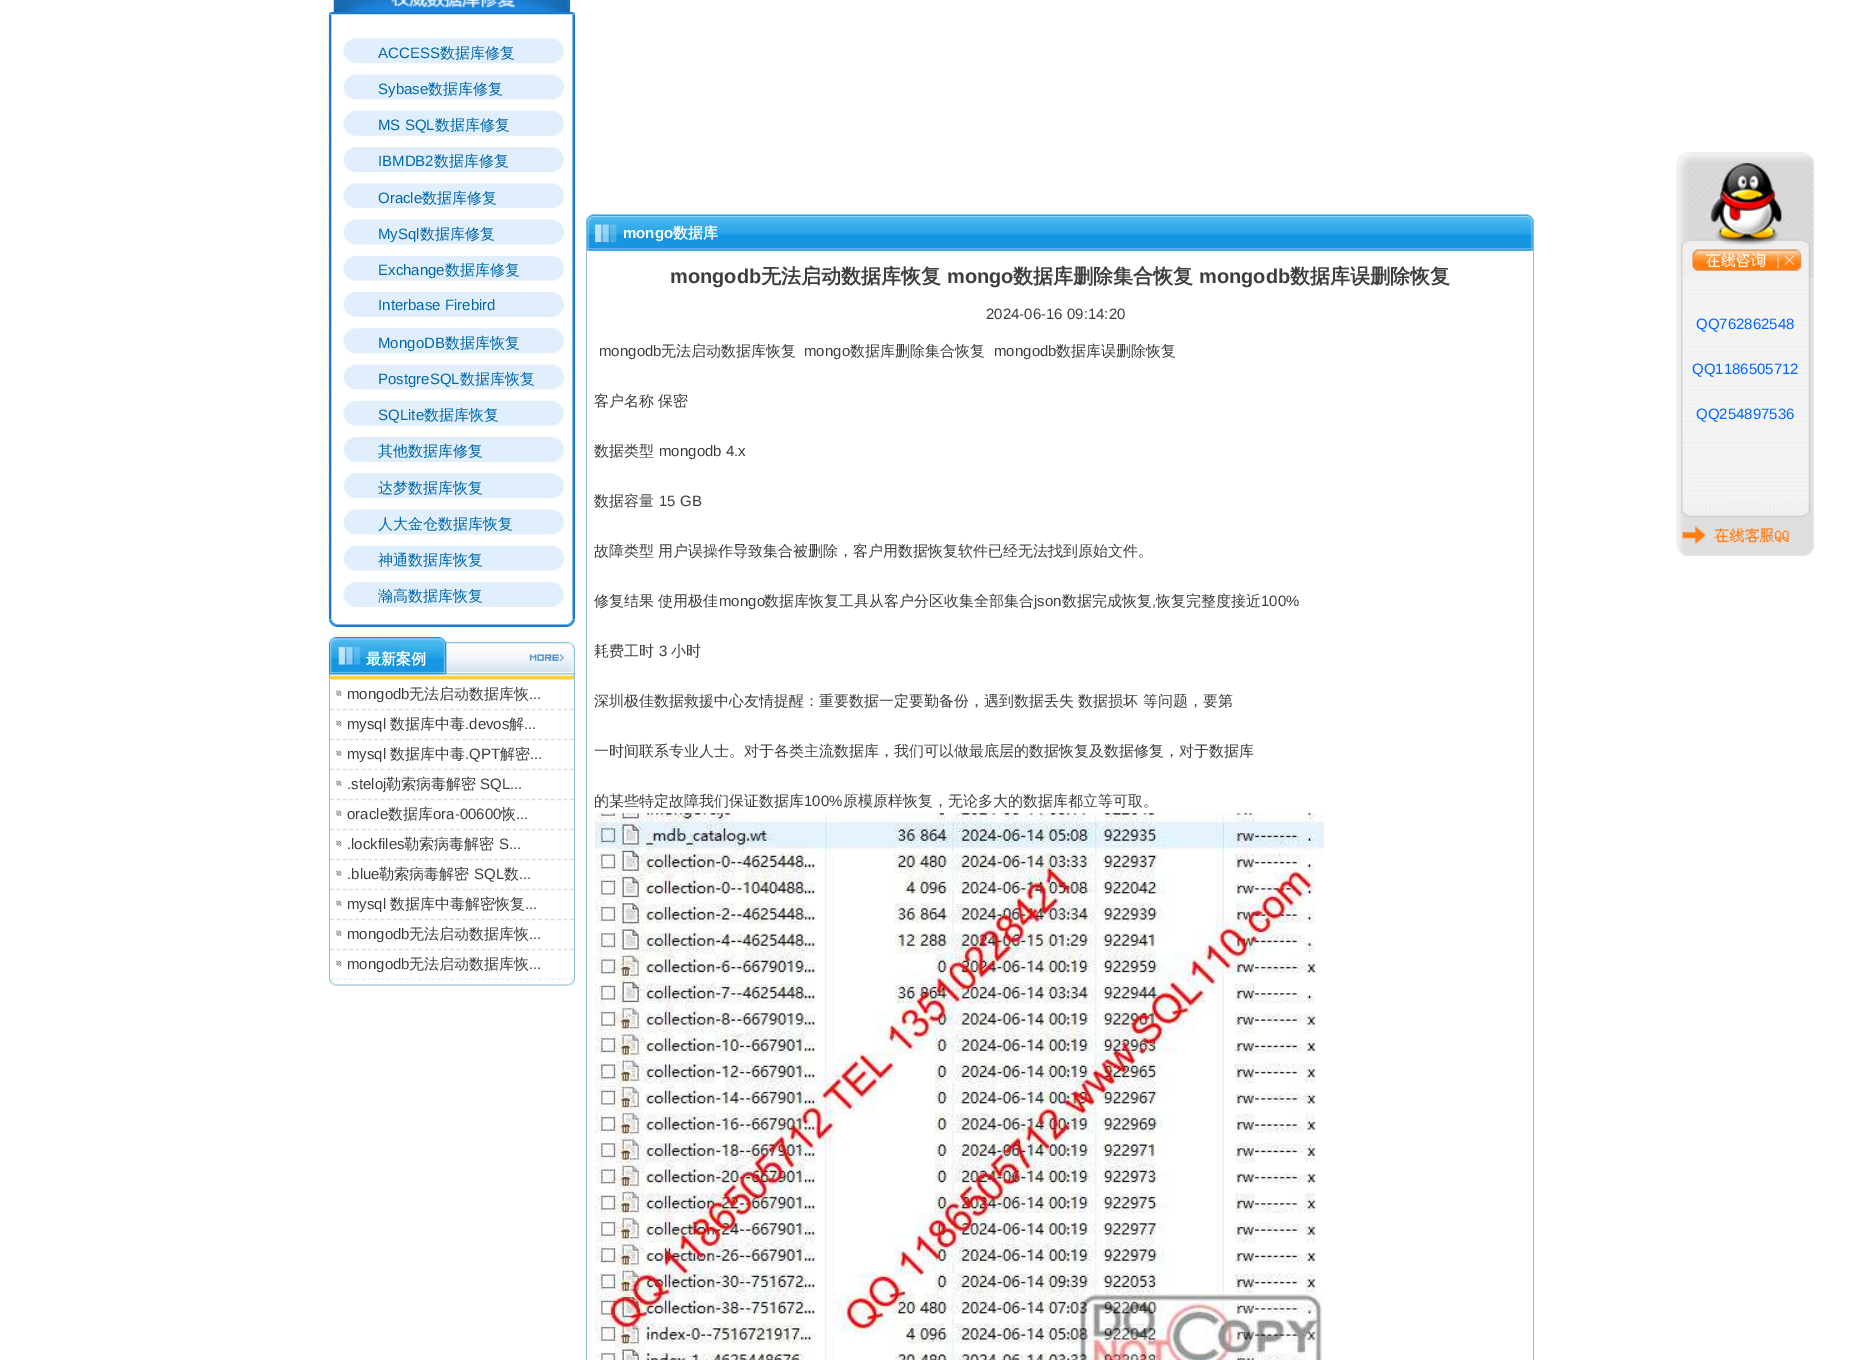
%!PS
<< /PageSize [1861 1360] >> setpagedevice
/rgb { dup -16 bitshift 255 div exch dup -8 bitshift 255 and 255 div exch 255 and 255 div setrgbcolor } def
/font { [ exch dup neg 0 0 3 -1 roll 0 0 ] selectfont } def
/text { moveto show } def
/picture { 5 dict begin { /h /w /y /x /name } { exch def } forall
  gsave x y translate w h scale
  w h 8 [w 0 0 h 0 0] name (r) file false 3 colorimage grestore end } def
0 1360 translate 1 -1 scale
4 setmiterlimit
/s1 { /LiberationSans-Regular 15 font 16#0168AF rgb } def
/s2 { /WenQuanYiZenHei-Medium 15 font 16#0168AF rgb } def
/s3 { /WenQuanYiZenHei-Bold 15 font 16#FFFFFF rgb } def
/s4 { /LiberationSans-Regular 15 font 16#3E3E3E rgb } def
/s5 { /WenQuanYiZenHei-Medium 15 font 16#3E3E3E rgb } def
/s6 { /LiberationSans-Bold 15 font 16#FFFFFF rgb } def
/s7 { /LiberationSans-Bold 20 font 16#3E3E3E rgb } def
/s8 { /WenQuanYiZenHei-Bold 20 font 16#3E3E3E rgb } def
/s9 { /LiberationSans-Regular 15 font 16#0066FF rgb } def
16#FFFFFF rgb
0 0 1861 1360 rectfill
(pic1.raw) 328 0 247 15 picture
(pic2.raw) 328 14 247 606 picture
(pic3.raw) 328 38 236 26 picture
s1
(ACCESS) 378 58 text
s2
(数据库修复) 440 58 text
(pic4.raw) 328 74 236 26 picture
s1
(Sybase) 378 94 text
s2
(数据库修复) 428 94 text
(pic5.raw) 328 110 236 26 picture
s1
(MS SQL) 378 130 text
s2
(数据库修复) 435 130 text
(pic6.raw) 328 147 236 25 picture
s1
(IBMDB2) 378 166 text
s2
(数据库修复) 434 166 text
(pic3.raw) 328 183 236 26 picture
s1
(Oracle) 378 203 text
s2
(数据库修复) 422 203 text
(pic4.raw) 328 219 236 26 picture
s1
(MySql) 378 239 text
s2
(数据库修复) 420 239 text
(pic5.raw) 328 255 236 26 picture
s1
(Exchange) 378 275 text
s2
(数据库修复) 445 275 text
(pic6.raw) 328 292 236 25 picture
s1
(Interbase Firebird) 378 310 text
(pic3.raw) 328 328 236 26 picture
(MongoDB) 378 348 text
s2
(数据库恢复) 445 348 text
(pic7.raw) 328 364 236 26 picture
s1
(PostgreSQL) 378 384 text
s2
(数据库恢复) 460 384 text
(pic5.raw) 328 400 236 26 picture
s1
(SQLite) 378 420 text
s2
(数据库恢复) 424 420 text
(pic6.raw) 328 437 236 25 picture
(其他数据库修复) 378 456 text
(pic3.raw) 328 473 236 26 picture
(达梦数据库恢复) 378 493 text
(pic4.raw) 328 509 236 26 picture
(人大金仓数据库恢复) 378 529 text
(pic5.raw) 328 545 236 26 picture
(神通数据库恢复) 378 565 text
(pic6.raw) 328 582 236 25 picture
(瀚高数据库恢复) 378 601 text
(pic8.raw) 328 619 247 8 picture
(pic9.raw) 328 637 247 43 picture
s3
(最新案例) 366 664 text
(pic10.raw) 529 654 36 7 picture
16#89BDD2 rgb
574 680 1 300 rectfill
329 680 1 300 rectfill
(pic11.raw) 336 690 6 6 picture
16#DEDEDE rgb
1.2 setlinewidth
[3.75 2.56] 0 setdash
330 709.5 moveto 574 709.5 lineto stroke
s4
(mongodb) 347 699 text
s5
(无法启动数据库恢) 409 699 text
s4
(...) 529 699 text
(pic11.raw) 336 720 6 6 picture
16#DEDEDE rgb
330 739.5 moveto 574 739.5 lineto stroke
s4
(mysql) 347 729 text
s5
(数据库中毒) 390 729 text
s4
(.devos) 465 729 text
s5
(解) 509 729 text
s4
(...) 524 729 text
(pic11.raw) 336 750 6 6 picture
16#DEDEDE rgb
330 769.5 moveto 574 769.5 lineto stroke
s4
(mysql) 347 759 text
s5
(数据库中毒) 390 759 text
s4
(.QPT) 465 759 text
s5
(解密) 500 759 text
s4
(...) 530 759 text
(pic11.raw) 336 780 6 6 picture
16#DEDEDE rgb
330 799.5 moveto 574 799.5 lineto stroke
s4
(.steloj) 347 789 text
s5
(勒索病毒解密) 386 789 text
s4
(SQL...) 480 789 text
(pic11.raw) 336 810 6 6 picture
16#DEDEDE rgb
330 829.5 moveto 574 829.5 lineto stroke
s4
(oracle) 347 819 text
s5
(数据库) 388 819 text
s4
(ora-00600) 433 819 text
s5
(恢) 501 819 text
s4
(...) 516 819 text
(pic11.raw) 336 840 6 6 picture
16#DEDEDE rgb
330 859.5 moveto 574 859.5 lineto stroke
s4
(.lockfiles) 347 849 text
s5
(勒索病毒解密) 404 849 text
s4
(S...) 499 849 text
(pic11.raw) 336 870 6 6 picture
16#DEDEDE rgb
330 889.5 moveto 574 889.5 lineto stroke
s4
(.blue) 347 879 text
s5
(勒索病毒解密) 379 879 text
s4
(SQL) 474 879 text
s5
(数) 504 879 text
s4
(...) 519 879 text
(pic11.raw) 336 900 6 6 picture
16#DEDEDE rgb
330 919.5 moveto 574 919.5 lineto stroke
s4
(mysql) 347 909 text
s5
(数据库中毒解密恢复) 390 909 text
s4
(...) 525 909 text
(pic11.raw) 336 930 6 6 picture
16#DEDEDE rgb
330 949.5 moveto 574 949.5 lineto stroke
s4
(mongodb) 347 939 text
s5
(无法启动数据库恢) 409 939 text
s4
(...) 529 939 text
(pic11.raw) 336 960 6 6 picture
16#DEDEDE rgb
330 979.5 moveto 574 979.5 lineto stroke
s4
(mongodb) 347 969 text
s5
(无法启动数据库恢) 409 969 text
s4
(...) 529 969 text
(pic12.raw) 328 979 247 7 picture
(pic13.raw) 586 214 948 37 picture
s6
(mongo) 623 238 text
s3
(数据库) 673 238 text
16#8DC2C8 rgb
1533 251 1 1109 rectfill
586 251 1 1109 rectfill
s7
(mongodb) 670 283 text
s8
(无法启动数据库恢复) 761 283 text
s7
(mongo) 947 283 text
s8
(数据库删除集合恢复) 1013 283 text
s7
(mongodb) 1199 283 text
s8
(数据库误删除恢复) 1290 283 text
s4
(2024-06-16 09:14:20) 986 319 text
(mongodb) 599 356 text
s5
(无法启动数据库恢复) 661 356 text
s4
(mongo) 804 356 text
s5
(数据库删除集合恢复) 850 356 text
s4
(mongodb) 994 356 text
s5
(数据库误删除恢复) 1056 356 text
(客户名称 保密) 594 406 text
(数据类型) 594 456 text
s4
(mongodb 4.x) 659 456 text
s5
(数据容量) 594 506 text
s4
(15 GB) 659 506 text
s5
(故障类型 用户误操作导致集合被删除，客户用数据恢复软件已经无法找到原始文件。) 594 556 text
(修复结果 使用极佳) 594 606 text
s4
(mongo) 719 606 text
s5
(数据库恢复工具从客户分区收集全部集合) 764 606 text
s4
(json) 1034 606 text
s5
(数据完成恢复) 1062 606 text
s4
(,) 1152 606 text
s5
(恢复完整度接近) 1156 606 text
s4
(100%) 1261 606 text
s5
(耗费工时) 594 656 text
s4
(3) 659 656 text
s5
(小时) 671 656 text
(深圳极佳数据救援中心友情提醒：重要数据一定要勤备份，遇到数据丢失 数据损坏 等问题，要第) 594 706 text
(一时间联系专业人士。对于各类主流数据库，我们可以做最底层的数据恢复及数据修复，对于数据库) 594 756 text
(的某些特定故障我们保证数据库) 594 806 text
s4
(100%) 804 806 text
s5
(原模原样恢复，无论多大的数据库都立等可取。) 843 806 text
(pic14.raw) 595 813 729 547 picture
(pic16.raw) 1676 279 138 223 picture
(pic15.raw) 1676 152 138 128 picture
s9
(QQ762862548) 1696 329 text
(QQ1186505712) 1692 374 text
(QQ254897536) 1696 419 text
(pic17.raw) 1676 502 138 54 picture
showpage
